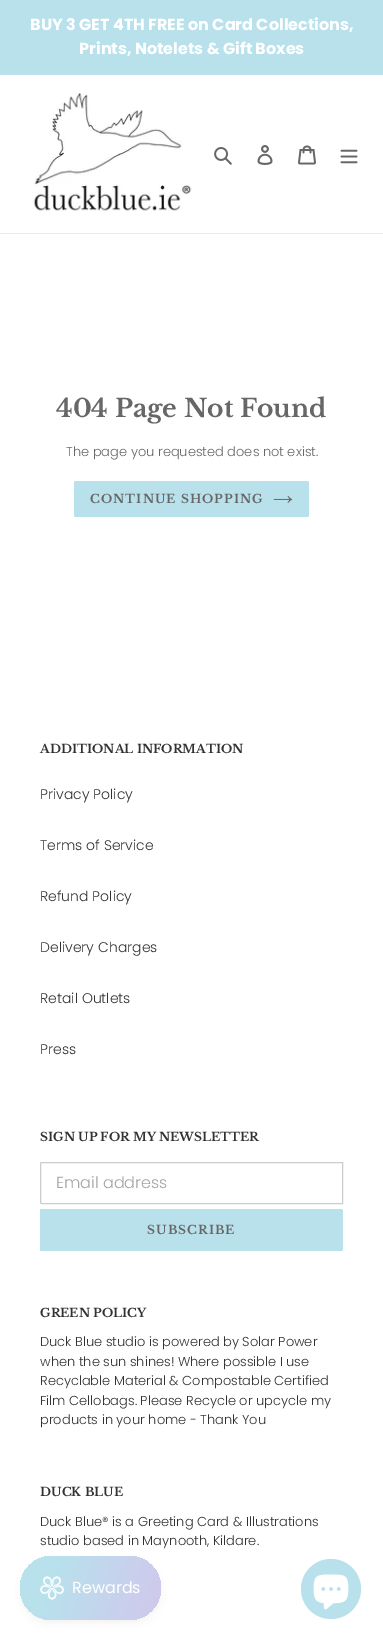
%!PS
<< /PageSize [383 1640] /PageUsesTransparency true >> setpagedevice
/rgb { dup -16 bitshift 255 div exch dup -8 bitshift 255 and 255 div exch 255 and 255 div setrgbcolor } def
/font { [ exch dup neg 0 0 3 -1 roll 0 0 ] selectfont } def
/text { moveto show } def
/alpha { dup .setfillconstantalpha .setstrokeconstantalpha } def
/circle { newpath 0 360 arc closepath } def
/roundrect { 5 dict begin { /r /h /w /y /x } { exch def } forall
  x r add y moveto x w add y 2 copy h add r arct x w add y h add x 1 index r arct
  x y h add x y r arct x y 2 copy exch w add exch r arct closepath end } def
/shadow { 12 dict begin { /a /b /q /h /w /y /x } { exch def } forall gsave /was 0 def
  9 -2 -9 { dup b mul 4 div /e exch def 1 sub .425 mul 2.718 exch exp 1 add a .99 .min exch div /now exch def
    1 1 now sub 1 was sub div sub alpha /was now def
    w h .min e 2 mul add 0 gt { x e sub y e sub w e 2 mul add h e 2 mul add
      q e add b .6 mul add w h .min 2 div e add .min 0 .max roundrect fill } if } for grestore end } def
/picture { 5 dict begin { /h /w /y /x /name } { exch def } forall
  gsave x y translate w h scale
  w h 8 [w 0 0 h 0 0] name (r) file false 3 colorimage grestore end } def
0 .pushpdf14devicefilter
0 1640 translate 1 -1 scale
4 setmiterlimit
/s1 { /Poppins-Bold 16 font 16#FFFFFF rgb } def
/s2 { /LibreBaskerville-Bold 25 font 16#686767 rgb } def
/s3 { /Poppins-Light 13 font 16#686767 rgb } def
/s4 { /LibreBaskerville-Bold 12 font 16#333232 rgb } def
/s5 { /Poppins-Light 14 font 16#333232 rgb } def
/s6 { /Poppins-Light 16 font 16#A4A4A4 rgb } def
/s7 { /Poppins-Light 13 font 16#333232 rgb } def
/s8 { /Poppins-Regular 16 font 16#FFFFFF rgb } def
16#FFFFFF rgb
0 0 383 1640 rectfill
16#B8E1EC rgb
0 0 383 75 rectfill
s1
(BUY 3 GET 4TH FREE on Card Collections,) 30 30 text
(Prints, Notelets & Gift Boxes) 79 54 text
16#EBEBEB rgb
0 233 383 1 rectfill
(pic1.raw) 33 92 159 119 picture
(pic2.raw) 214 147 18 18 picture
(pic3.raw) 257 145 16 20 picture
(pic4.raw) 298 145 18 20 picture
(pic5.raw) 340 149 18 15 picture
s2
(404 Page Not Found) 56 417 text
s3
(The page you requested does not exist.) 66 456 text
16#B8E1EC rgb
74 481 235 36 2 roundrect fill
/LibreBaskerville-Bold 12 font
16#686767 rgb
90 503 moveto 1 0 (CONTINUE SHOPPING) ashow
(pic6.raw) 273 495 20 8 picture
s4
(ADDITIONAL INFORMATION) 40 753 text
s5
(Privacy Policy) 40 799 text
(Terms of Service) 40 850 text
(Refund Policy) 40 901 text
(Delivery Charges) 40 952 text
(Retail Outlets) 40 1003 text
(Press) 40 1054 text
s4
(SIGN UP FOR MY NEWSLETTER) 40 1141 text
16#CCCCCC rgb
42 1162.5 moveto 342.5 1162.5 lineto 342.5 1203.5 lineto 42 1203.5 lineto 41 1203.5 40.5 1203 40.5 1202 curveto 40.5 1164 lineto 40.5 1163 41 1162.5 42 1162.5 curveto closepath stroke
s6
(Email address) 56 1188 text
16#B8E1EC rgb
40 1209 moveto 341 1209 lineto 342 1209 343 1210 343 1211 curveto 343 1249 lineto 343 1250 342 1251 341 1251 curveto 40 1251 lineto closepath fill
/LibreBaskerville-Bold 12 font
16#686767 rgb
147 1234 moveto 1 0 (SUBSCRIBE) ashow
s4
(GREEN POLICY) 40 1317 text
s7
(Duck Blue studio is powered by Solar Power) 40 1346 text
(when the sun shines! Where possible I use) 40 1366 text
(Recyclable Material & Compostable Certified) 40 1385 text
(Film Cellobags. Please Recycle or upcycle my) 40 1405 text
(products in your home - Thank You) 40 1424 text
s4
(DUCK BLUE) 40 1496 text
s7
(Duck Blue® is a Greeting Card & Illustrations) 40 1526 text
(studio based in Maynooth, Kildare.) 40 1545 text
16#444444 rgb
22 1562 137 60 30 4 0.08 shadow
gsave 20 1556 141 64 32 roundrect clip newpath
<< /ShadingType 2 /ColorSpace /DeviceRGB /Coords [18 1562 222 1634] /Extend [true true] /Function << /FunctionType 3 /Domain [0 1] /Functions [<< /FunctionType 2 /Domain [0 1] /C0 [0.722 0.882 0.925] /C1 [0.722 0.882 0.925] /N 1 >> << /FunctionType 2 /Domain [0 1] /C0 [0.722 0.882 0.925] /C1 [0.875 0.725 0.925] /N 1 >>] /Bounds [0.17] /Encode [0 1 0 1] >> >> shfill grestore
(pic7.raw) 40 1576 24 24 picture
s8
(Rewards) 72 1593 text
16#B8E1EC rgb
331 1589 30 circle fill
(pic8.raw) 313 1574 36 36 picture
.poppdf14devicefilter showpage
